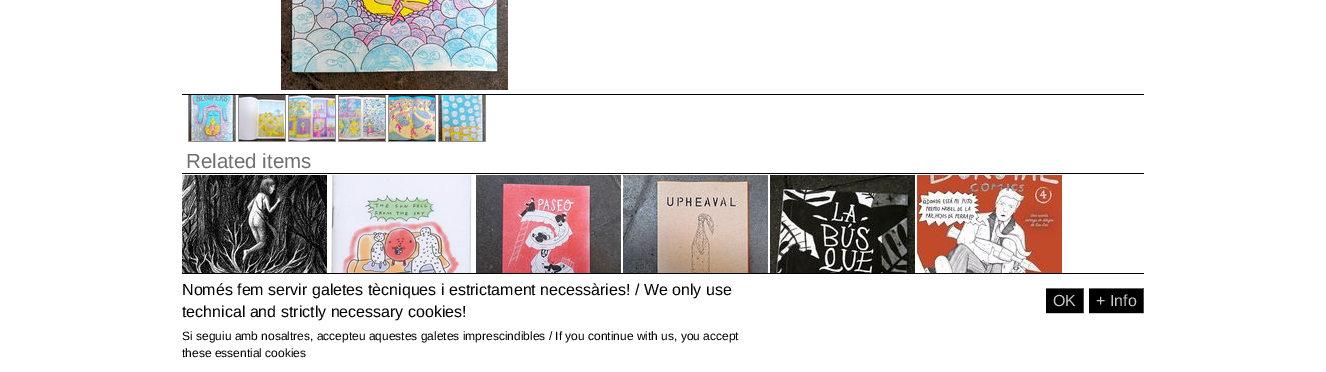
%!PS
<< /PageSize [1326 372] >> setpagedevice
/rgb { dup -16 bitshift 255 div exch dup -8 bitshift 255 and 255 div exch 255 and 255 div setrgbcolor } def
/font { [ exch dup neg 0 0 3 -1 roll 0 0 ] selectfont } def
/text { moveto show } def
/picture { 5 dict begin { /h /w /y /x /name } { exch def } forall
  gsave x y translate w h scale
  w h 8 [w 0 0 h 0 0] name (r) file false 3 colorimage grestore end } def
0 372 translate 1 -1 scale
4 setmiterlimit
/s1 { /LiberationSans-Regular 20.5 font 16#707070 rgb } def
/s2 { /LiberationSans-Regular 16 font 16#000000 rgb } def
/s3 { /LiberationSans-Regular 12 font 16#000000 rgb } def
/s4 { /LiberationSans-Regular 16 font 16#C7C7C7 rgb } def
16#FFFFFF rgb
0 0 1326 372 rectfill
(pic1.raw) 281 0 227 90 picture
16#000000 rgb
182 94 962 1 rectfill
16#909090 rgb
235 95 1 47 rectfill
188 141 48 1 rectfill
188 95 1 47 rectfill
(pic2.raw) 189 95 46 46 picture
285 95 1 47 rectfill
238 141 48 1 rectfill
238 95 1 47 rectfill
(pic3.raw) 239 95 46 46 picture
335 95 1 47 rectfill
288 141 48 1 rectfill
288 95 1 47 rectfill
(pic4.raw) 289 95 46 46 picture
385 95 1 47 rectfill
338 141 48 1 rectfill
338 95 1 47 rectfill
(pic5.raw) 339 95 46 46 picture
435 95 1 47 rectfill
388 141 48 1 rectfill
388 95 1 47 rectfill
(pic6.raw) 389 95 46 46 picture
485 95 1 47 rectfill
438 141 48 1 rectfill
438 95 1 47 rectfill
(pic7.raw) 439 95 46 46 picture
16#000000 rgb
182 173 962 1 rectfill
s1
(Related items) 186 168 text
(pic8.raw) 182 175 145 98 picture
(pic9.raw) 330 175 142 98 picture
(pic10.raw) 476 175 145 98 picture
(pic11.raw) 623 175 145 98 picture
(pic12.raw) 770 175 145 98 picture
(pic13.raw) 917 175 145 98 picture
16#000000 rgb
182 273 962 1 rectfill
s2
(Només fem servir galetes tècniques i estrictament necessàries! / We only use) 182 295 text
(technical and strictly necessary cookies!) 182 317 text
s3
(Si seguiu amb nosaltres, accepteu aquestes galetes imprescindibles / If you continue with us, you accept) 182 340 text
(these essential cookies) 182 357 text
1046 289 37 24 rectfill
16#666666 rgb
1046 288 38 1 rectfill
16#4B4B4B rgb
1083 288 1 26 rectfill
16#CCCCCC rgb
1046 313 38 1 rectfill
s4
(OK) 1053 306 text
16#000000 rgb
1089 289 54 24 rectfill
16#666666 rgb
1089 288 55 1 rectfill
16#4B4B4B rgb
1143 288 1 26 rectfill
16#CCCCCC rgb
1089 313 55 1 rectfill
s4
(+ Info) 1096 306 text
showpage
